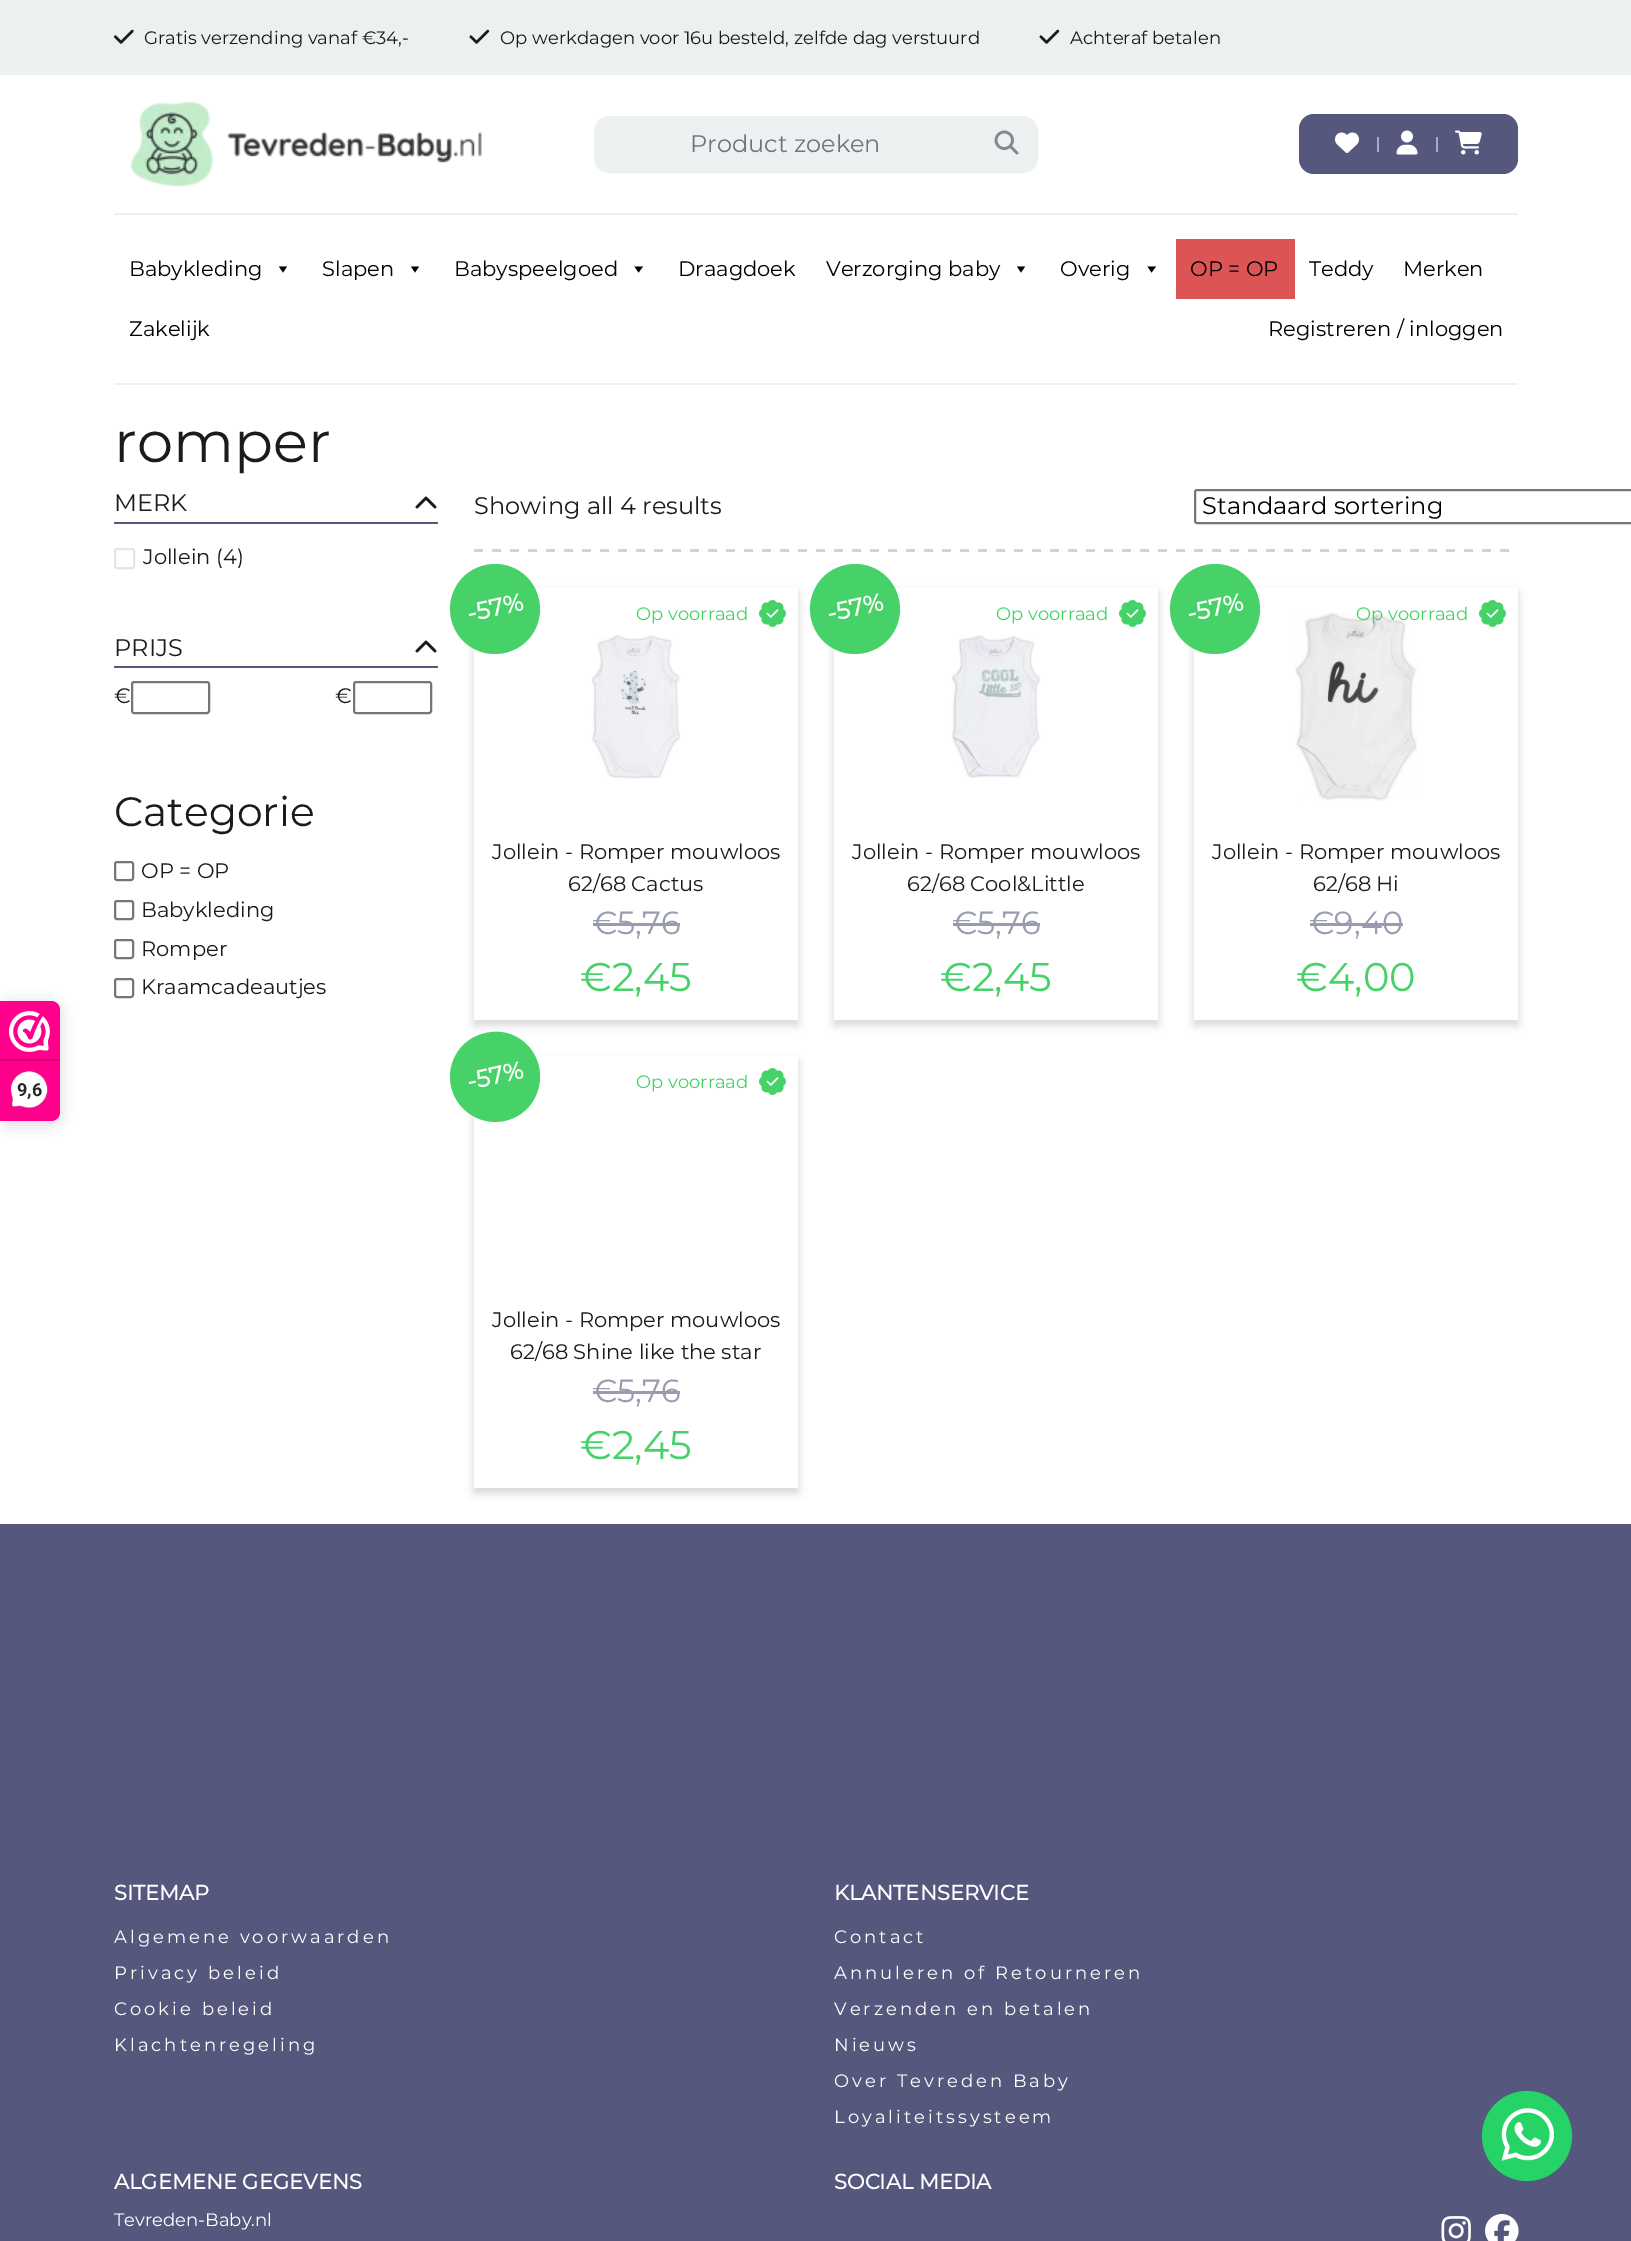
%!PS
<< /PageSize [1631 2241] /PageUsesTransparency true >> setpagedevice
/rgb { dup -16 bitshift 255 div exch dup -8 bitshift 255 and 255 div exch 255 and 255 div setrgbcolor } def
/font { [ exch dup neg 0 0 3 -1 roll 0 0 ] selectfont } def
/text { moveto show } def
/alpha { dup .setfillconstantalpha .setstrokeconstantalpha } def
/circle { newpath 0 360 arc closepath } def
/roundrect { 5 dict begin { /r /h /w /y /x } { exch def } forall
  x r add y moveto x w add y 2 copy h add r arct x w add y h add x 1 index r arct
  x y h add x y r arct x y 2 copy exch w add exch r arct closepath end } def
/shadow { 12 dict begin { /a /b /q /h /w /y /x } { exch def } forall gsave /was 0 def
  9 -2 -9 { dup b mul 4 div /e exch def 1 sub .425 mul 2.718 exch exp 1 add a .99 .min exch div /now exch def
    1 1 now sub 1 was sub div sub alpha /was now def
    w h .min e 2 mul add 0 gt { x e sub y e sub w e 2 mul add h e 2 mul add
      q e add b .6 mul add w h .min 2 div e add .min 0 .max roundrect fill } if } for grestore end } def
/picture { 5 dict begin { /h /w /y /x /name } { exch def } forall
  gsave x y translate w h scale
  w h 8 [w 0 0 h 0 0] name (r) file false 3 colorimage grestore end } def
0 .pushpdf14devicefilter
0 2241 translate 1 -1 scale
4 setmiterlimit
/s1 { /Montserrat-Thin 18 font 16#1B1B1B rgb } def
/s2 { /Montserrat-Thin 24 font 16#6C757D rgb } def
/s3 { /Montserrat-Thin 21 font 16#000000 rgb } def
/s4 { /Roboto-Bold 18 font 16#272626 rgb } def
/s5 { /Montserrat-Thin 57.5 font 16#1B1B1B rgb } def
/s6 { /Montserrat-Thin 24 font 16#1B1B1B rgb } def
/s7 { /Montserrat-Thin 21 font 16#1B1B1B rgb } def
/s8 { /Montserrat-Thin 41 font 16#1B1B1B rgb } def
/s9 { /Montserrat-Thin 24 font 16#000000 rgb } def
/s10 { /Montserrat-Thin 18 font 16#46D268 rgb } def
/s11 { /Montserrat-Thin 32 font 16#999BB0 rgb } def
/s12 { /Montserrat-Thin 40 font 16#46D268 rgb } def
/s13 { /Montserrat-Bold 21 font 16#FFFFFF rgb } def
/s14 { /Montserrat-Thin 18 font 16#FFFFFF rgb } def
16#FFFFFF rgb
0 0 1631 2241 rectfill
16#ECF0F1 rgb
0 0 1631 75 rectfill
(pic1.raw) 114 29 20 15 picture
s1
(Gratis verzending vanaf €34,-) 144 44 text
(pic2.raw) 469 29 21 15 picture
(Op werkdagen voor 16u besteld, zelfde dag verstuurd) 500 44 text
(pic2.raw) 1039 29 21 15 picture
(Achteraf betalen) 1070 44 text
(pic3.raw) 130 101 352 86 picture
16#ECF0F1 rgb
609 117 moveto 976 117 lineto 976 172 lineto 609 172 lineto 601.5 172 595 165.5 595 158 curveto 595 131 lineto 595 123.5 601.5 117 609 117 curveto closepath gsave fill grestore
2 setlinewidth
stroke
s2
(Product zoeken) 690 152 text
16#ECF0F1 rgb
976 117 moveto 1023 117 lineto 1030.5 117 1037 123.5 1037 131 curveto 1037 158 lineto 1037 165.5 1030.5 172 1023 172 curveto 976 172 lineto closepath gsave fill grestore
stroke
(pic4.raw) 994 130 25 25 picture
16#55587C rgb
1299 114 219 60 15 roundrect fill
(pic5.raw) 1335 132 24 21 picture
16#AAACBE rgb
1377 137 2 15 rectfill
(pic6.raw) 1396 130 22 25 picture
1436 137 2 15 rectfill
(pic7.raw) 1455 130 27 25 picture
16#ECF0F1 rgb
114 213 1404 2 rectfill
s3
(Babykleding) 129 276 text
287 266.5 moveto 283 272.5 lineto 279 266.5 lineto closepath fill
(Slapen) 322 276 text
419 266.5 moveto 415 272.5 lineto 411 266.5 lineto closepath fill
(Babyspeelgoed) 454 276 text
643 266.5 moveto 638.5 272.5 lineto 634.5 266.5 lineto closepath fill
(Draagdoek) 678 276 text
(Verzorging baby) 826 276 text
1025 266.5 moveto 1021 272.5 lineto 1017 266.5 lineto closepath fill
(Overig) 1060 276 text
1156 266.5 moveto 1151.5 272.5 lineto 1147.5 266.5 lineto closepath fill
16#DC5454 rgb
1176 239 119 60 rectfill
s3
(OP = OP) 1190 276 text
(Teddy) 1309 276 text
(Merken) 1403 276 text
(Zakelijk) 129 336 text
(Registreren / inloggen) 1268 336 text
16#ECF0F1 rgb
114 383 1404 2 rectfill
16#000000 rgb
0 1004 60 120 9 7.5 0.15 shadow
16#FE008C rgb
0 1001 moveto 51 1001 lineto 56 1001 60 1005 60 1010 curveto 60 1112 lineto 60 1117 56 1121 51 1121 curveto 0 1121 lineto closepath fill
(pic8.raw) 9 1011 41 41 picture
16#D80077 rgb
0 1059 59 2 rectfill
(pic9.raw) 10 1071 38 38 picture
s4
(9,6) 17 1096 text
s5
(romper) 114 462 text
16#55587C rgb
114 522 324 2 rectfill
s6
(MERK) 114 511 text
(pic10.raw) 415 496 22 13 picture
16#E5E5E5 rgb
115 549 19 19 2 roundrect stroke
s7
(Jollein \(4\)) 143 564 text
16#55587C rgb
114 666 324 2 rectfill
s6
(PRIJS) 114 656 text
(pic10.raw) 415 640 22 13 picture
s7
(€) 114 703 text
16#767676 rgb
132 682 77 31 2 roundrect stroke
s7
(€) 335 703 text
16#767676 rgb
354 682 77 31 2 roundrect stroke
s8
(Categorie) 114 826 text
16#767676 rgb
115 862 18 18 2 roundrect stroke
s7
(OP = OP) 141 878 text
16#767676 rgb
115 901 18 18 2 roundrect stroke
s7
(Babykleding) 141 917 text
16#767676 rgb
115 940 18 18 2 roundrect stroke
s7
(Romper) 141 956 text
16#767676 rgb
115 979 18 18 2 roundrect stroke
s7
(Kraamcadeautjes) 141 994 text
s6
(Showing all 4 results) 474 514 text
16#767676 rgb
1195 490 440 33 2 roundrect stroke
s9
(Standaard sortering) 1202 514 text
(pic11.raw) 474 549 1035 3 picture
gsave
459 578 moveto 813 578 lineto 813 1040 lineto 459 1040 lineto closepath 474 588 moveto 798 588 lineto 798 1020 lineto 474 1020 lineto closepath eoclip newpath
474 593 324 432 0 4.5 0.16 shadow
grestore
16#46D268 rgb
486 565 moveto 510 560 534 575 539 600 curveto 544 624 529 648 504 653 curveto 480 658 456 643 451 618 curveto 446 594 461 570 486 565 curveto closepath fill
/Montserrat-Bold 24 font
16#FFFFFF rgb
gsave 469 622 translate -12 rotate 0 0 moveto (-57%) show grestore
s10
(Op voorraad) 636 620 text
(pic12.raw) 759 600 27 27 picture
(pic13.raw) 591 635 90 144 picture
s7
(Jollein - Romper mouwloos) 492 859 text
(62/68 Cactus) 568 891 text
s11
(€5,76) 592 934 text
593 923 87 3 rectfill
s12
(€2,45) 580 991 text
gsave
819 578 moveto 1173 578 lineto 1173 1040 lineto 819 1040 lineto closepath 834 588 moveto 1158 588 lineto 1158 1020 lineto 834 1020 lineto closepath eoclip newpath
16#000000 rgb
834 593 324 432 0 4.5 0.16 shadow
grestore
846 565 moveto 870 560 894 575 899 600 curveto 904 624 889 648 864 653 curveto 840 658 816 643 811 618 curveto 806 594 821 570 846 565 curveto closepath fill
/Montserrat-Bold 24 font
16#FFFFFF rgb
gsave 829 622 translate -12 rotate 0 0 moveto (-57%) show grestore
s10
(Op voorraad) 996 620 text
(pic14.raw) 1119 600 27 27 picture
(pic15.raw) 951 635 90 143 picture
s7
(Jollein - Romper mouwloos) 852 859 text
(62/68 Cool&Little) 907 891 text
s11
(€5,76) 952 934 text
953 923 87 3 rectfill
s12
(€2,45) 940 991 text
gsave
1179 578 moveto 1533 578 lineto 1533 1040 lineto 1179 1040 lineto closepath 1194 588 moveto 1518 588 lineto 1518 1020 lineto 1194 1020 lineto closepath eoclip newpath
16#000000 rgb
1194 593 324 432 0 4.5 0.16 shadow
grestore
1206 565 moveto 1230 560 1254 575 1259 600 curveto 1264 624 1249 648 1224 653 curveto 1200 658 1176 643 1171 618 curveto 1166 594 1181 570 1206 565 curveto closepath fill
/Montserrat-Bold 24 font
16#FFFFFF rgb
gsave 1189 622 translate -12 rotate 0 0 moveto (-57%) show grestore
(pic16.raw) 1295 612 123 189 picture
s10
(Op voorraad) 1356 620 text
(pic14.raw) 1479 600 27 27 picture
s7
(Jollein - Romper mouwloos) 1212 859 text
(62/68 Hi) 1313 891 text
s11
(€9,40) 1309 934 text
1310 923 93 3 rectfill
s12
(€4,00) 1296 991 text
gsave
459 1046 moveto 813 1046 lineto 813 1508 lineto 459 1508 lineto closepath 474 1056 moveto 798 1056 lineto 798 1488 lineto 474 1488 lineto closepath eoclip newpath
16#000000 rgb
474 1061 324 432 0 4.5 0.16 shadow
grestore
486 1033 moveto 510 1027 534 1043 539 1067 curveto 544 1092 529 1116 504 1121 curveto 480 1126 456 1110 451 1086 curveto 446 1062 461 1038 486 1033 curveto closepath fill
/Montserrat-Bold 24 font
16#FFFFFF rgb
gsave 469 1090 translate -12 rotate 0 0 moveto (-57%) show grestore
s10
(Op voorraad) 636 1088 text
(pic12.raw) 759 1068 27 27 picture
s7
(Jollein - Romper mouwloos) 492 1327 text
(62/68 Shine like the star) 510 1359 text
s11
(€5,76) 592 1402 text
593 1391 87 3 rectfill
s12
(€2,45) 580 1459 text
16#55587C rgb
0 1524 1631 717 rectfill
s13
(SITEMAP) 114 1900 text
/Montserrat-Thin 18 font
114 1943 moveto 3 0 (Algemene voorwaarden) ashow
114 1979 moveto 3 0 (Privacy beleid) ashow
114 2015 moveto 3 0 (Cookie beleid) ashow
114 2051 moveto 3 0 (Klachtenregeling) ashow
s13
(KLANTENSERVICE) 834 1900 text
/Montserrat-Thin 18 font
834 1943 moveto 3 0 (Contact) ashow
834 1979 moveto 3 0 (Annuleren of Retourneren) ashow
834 2015 moveto 3 0 (Verzenden en betalen) ashow
834 2051 moveto 3 0 (Nieuws) ashow
834 2087 moveto 3 0 (Over Tevreden Baby) ashow
834 2123 moveto 3 0 (Loyaliteitssysteem) ashow
s13
(ALGEMENE GEGEVENS) 114 2189 text
s14
(Tevreden-Baby.nl) 114 2226 text
s13
(SOCIAL MEDIA) 834 2189 text
(pic17.raw) 1441 2216 30 25 picture
(pic18.raw) 1485 2214 34 27 picture
16#25D366 rgb
1527 2136 45 circle fill
(pic19.raw) 1501 2108 53 53 picture
.poppdf14devicefilter showpage
